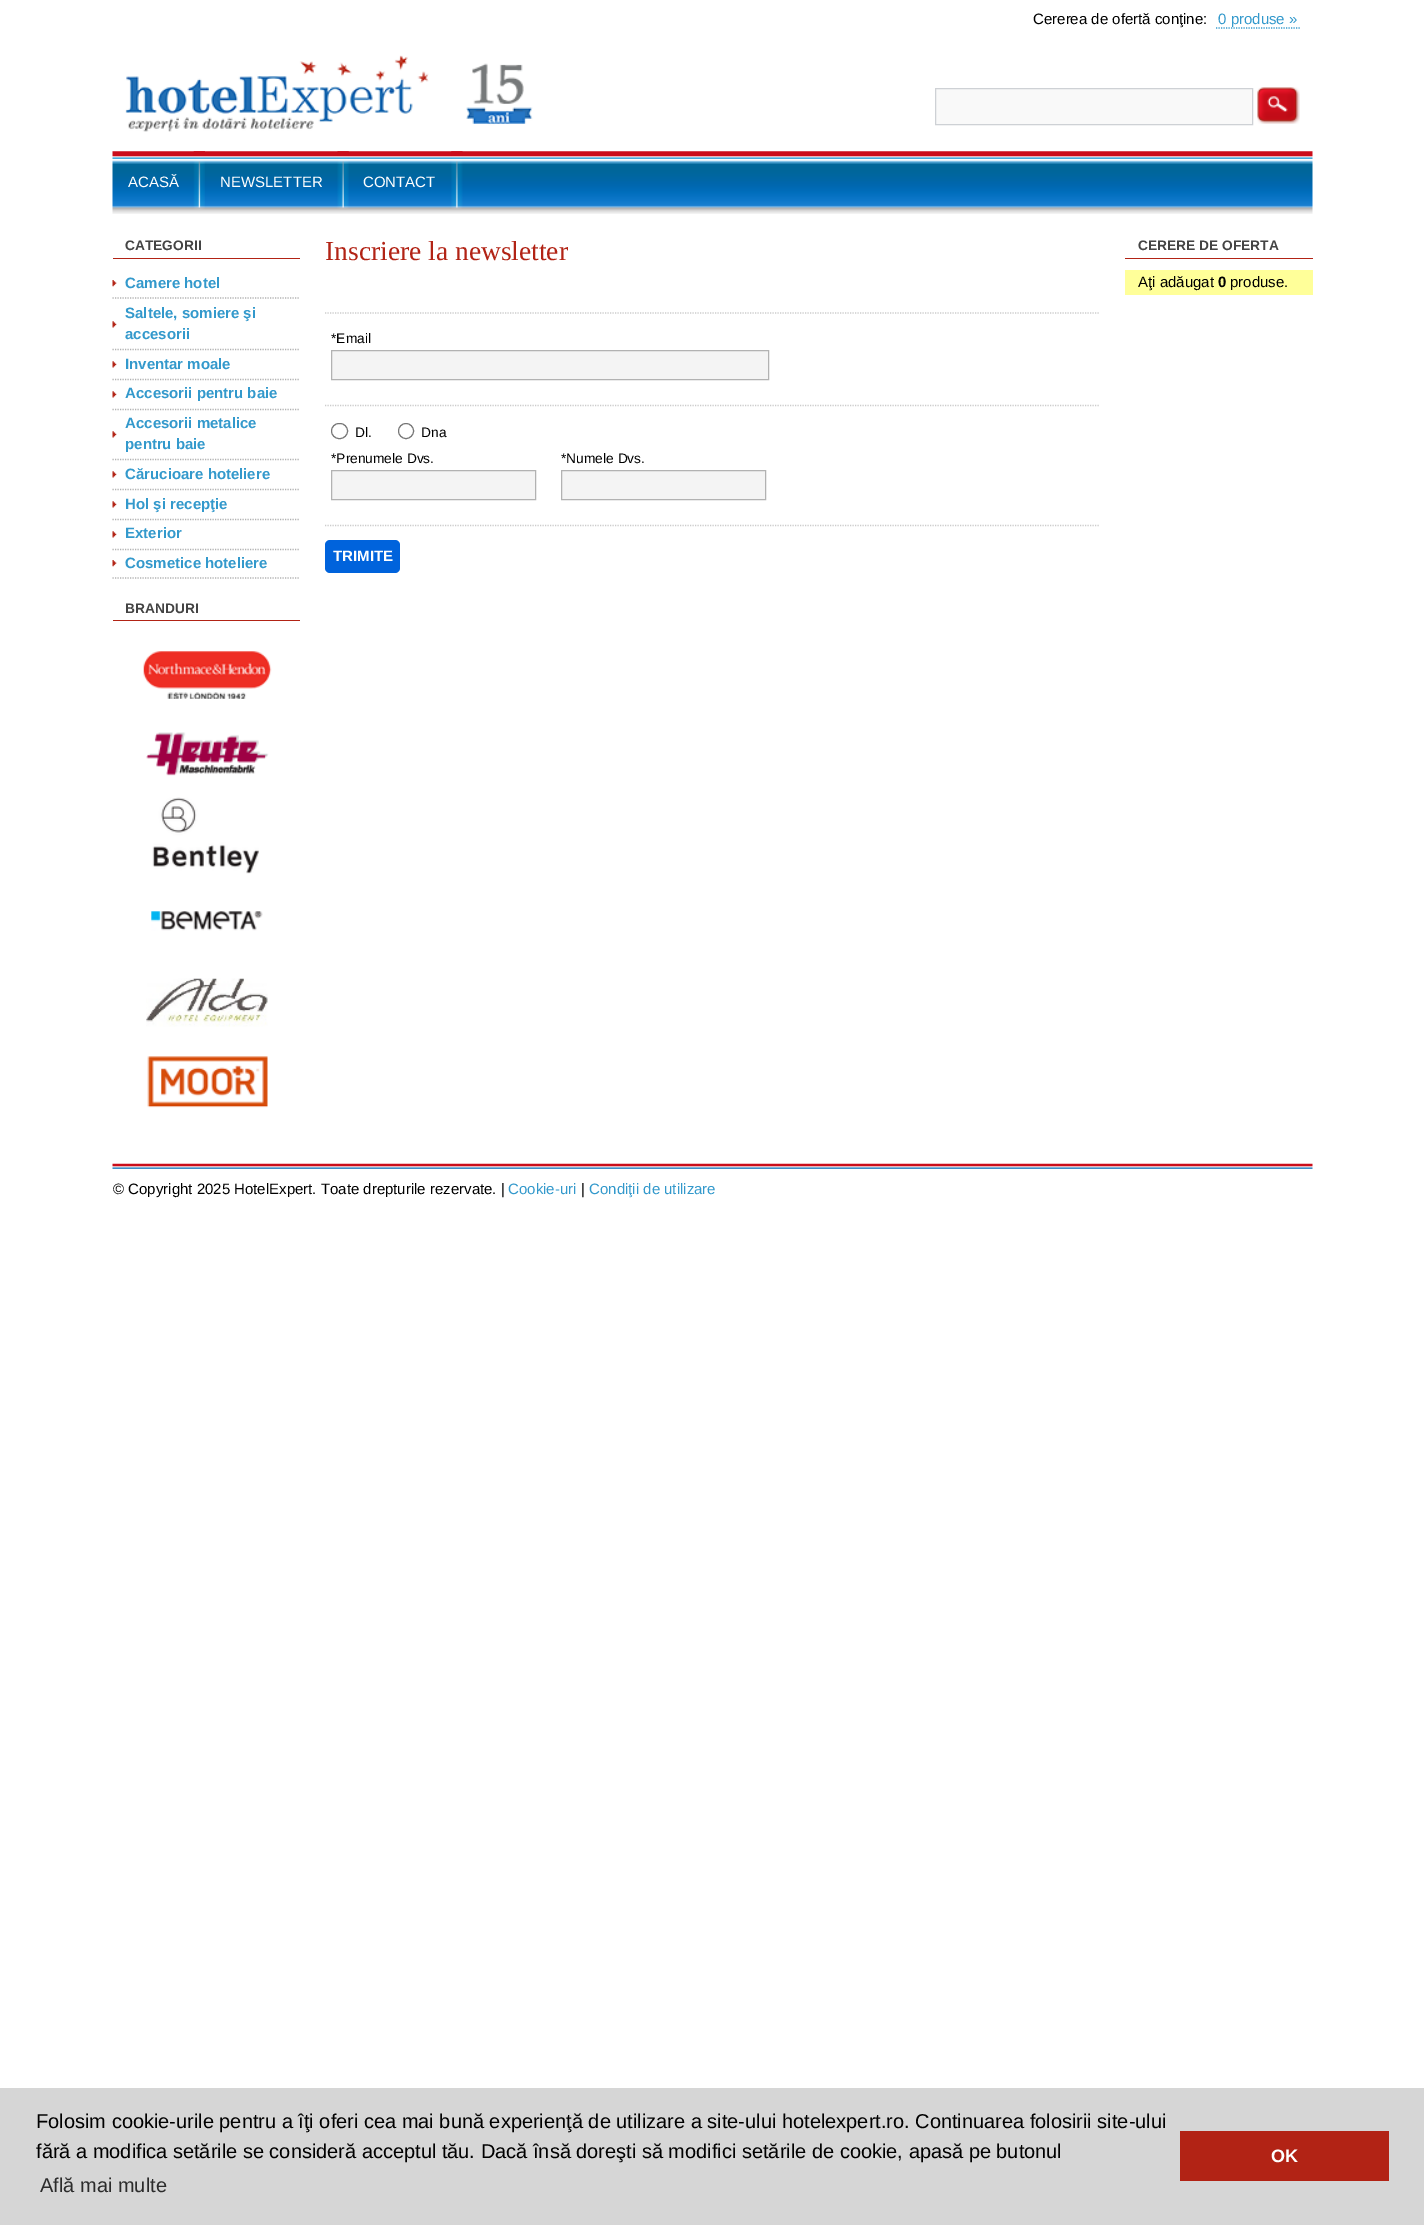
%!PS
<< /PageSize [1424 2225] >> setpagedevice
/rgb { dup -16 bitshift 255 div exch dup -8 bitshift 255 and 255 div exch 255 and 255 div setrgbcolor } def
/font { [ exch dup neg 0 0 3 -1 roll 0 0 ] selectfont } def
/text { moveto show } def
/circle { newpath 0 360 arc closepath } def
/roundrect { 5 dict begin { /r /h /w /y /x } { exch def } forall
  x r add y moveto x w add y 2 copy h add r arct x w add y h add x 1 index r arct
  x y h add x y r arct x y 2 copy exch w add exch r arct closepath end } def
/picture { 5 dict begin { /h /w /y /x /name } { exch def } forall
  gsave x y translate w h scale
  w h 8 [w 0 0 h 0 0] name (r) file false 3 colorimage grestore end } def
0 2225 translate 1 -1 scale
4 setmiterlimit
/s1 { /LiberationSans-Regular 15 font 16#000000 rgb } def
/s2 { /LiberationSans-Regular 15 font 16#3399CC rgb } def
/s3 { /LiberationSans-Regular 15 font 16#FFFFFF rgb } def
/s4 { /LiberationSans-Bold 13.75 font 16#444444 rgb } def
/s5 { /LiberationSans-Bold 15 font 16#3399CC rgb } def
/s6 { /LiberationSerif-Regular 27.5 font 16#B22315 rgb } def
/s7 { /LiberationSans-Regular 13.75 font 16#000000 rgb } def
/s8 { /LiberationSans-Bold 15 font 16#FFFFFF rgb } def
/s9 { /LiberationSans-Bold 15 font 16#000000 rgb } def
/s10 { /LiberationSans-Regular 20 font 16#000000 rgb } def
/s11 { /LiberationSans-Regular 20 font 16#2B2B2B rgb } def
/s12 { /LiberationSans-Bold 18 font 16#FFFFFF rgb } def
16#FFFFFF rgb
0 0 1424 2225 rectfill
s1
(Cererea de ofertă conţine:) 1033 24 text
16#3399CC rgb
1.2 setlinewidth
[1.25 1.25] 0 setdash
1216 28 moveto 1300 28 lineto stroke
(0 produse ») 1218 24 text
(pic1.raw) 125 55 408 77 picture
16#F9F9F9 rgb
935.5 88.5 moveto 1252.5 88.5 lineto 1252.5 124.5 lineto 935.5 124.5 lineto closepath gsave fill grestore
16#CED1D5 rgb
1 setlinewidth
[] 0 setdash
stroke
(pic2.raw) 1257 87 43 37 picture
(pic3.raw) 112 151 1201 63 picture
(pic4.raw) 193 151 12 59 picture
s3
(ACASĂ) 128 187 text
(pic5.raw) 337 151 12 58 picture
(NEWSLETTER) 220 187 text
(pic6.raw) 451 151 12 58 picture
(CONTACT) 363 187 text
16#B22315 rgb
113 258 187 1 rectfill
s4
(CATEGORII) 125 250 text
16#B2B2B2 rgb
1.2 setlinewidth
[1.25 1.25] 0 setdash
112.5 298 moveto 300 298 lineto stroke
(pic7.raw) 112 280 5 7 picture
s5
(Camere hotel) 125 288 text
16#B2B2B2 rgb
112.5 349.5 moveto 300 349.5 lineto stroke
(pic8.raw) 112 321 5 7 picture
s5
(Saltele, somiere şi) 125 318 text
(accesorii) 125 339 text
16#B2B2B2 rgb
112.5 379.5 moveto 300 379.5 lineto stroke
(pic8.raw) 112 361 5 7 picture
s5
(Inventar moale) 125 369 text
16#B2B2B2 rgb
112.5 409.5 moveto 300 409.5 lineto stroke
(pic8.raw) 112 391 5 7 picture
s5
(Accesorii pentru baie) 125 398 text
16#B2B2B2 rgb
112.5 459.5 moveto 300 459.5 lineto stroke
(pic8.raw) 112 431 5 7 picture
s5
(Accesorii metalice) 125 428 text
(pentru baie) 125 449 text
16#B2B2B2 rgb
112.5 489.5 moveto 300 489.5 lineto stroke
(pic8.raw) 112 471 5 7 picture
s5
(Cărucioare hoteliere) 125 479 text
16#B2B2B2 rgb
112.5 519.5 moveto 300 519.5 lineto stroke
(pic8.raw) 112 501 5 7 picture
s5
(Hol şi recepţie) 125 509 text
16#B2B2B2 rgb
112.5 549.5 moveto 300 549.5 lineto stroke
(pic8.raw) 112 531 5 7 picture
s5
(Exterior) 125 538 text
16#B2B2B2 rgb
112.5 578 moveto 300 578 lineto stroke
(pic7.raw) 112 560 5 7 picture
s5
(Cosmetice hoteliere) 125 568 text
16#B22315 rgb
113 620 187 1 rectfill
s4
(BRANDURI) 125 613 text
(pic9.raw) 143 651 129 48 picture
(pic10.raw) 146 732 123 44 picture
(pic11.raw) 152 797 107 77 picture
(pic12.raw) 151 911 112 20 picture
(pic13.raw) 146 978 122 49 picture
(pic14.raw) 147 1056 121 52 picture
s6
(Inscriere la newsletter) 325 260 text
16#CCCCCC rgb
325 313 moveto 1100 313 lineto stroke
s7
(*Email) 331 343 text
16#F4F4F4 rgb
331.5 350.5 moveto 768.5 350.5 lineto 768.5 379.5 lineto 331.5 379.5 lineto closepath gsave fill grestore
16#B2B2B2 rgb
1 setlinewidth
[] 0 setdash
stroke
16#CCCCCC rgb
1.2 setlinewidth
[1.25 1.25] 0 setdash
325 405.5 moveto 1100 405.5 lineto stroke
16#767676 rgb
1 setlinewidth
[] 0 setdash
331.5 423.5 16 15 7.5 roundrect stroke
s7
(Dl.) 355 437 text
16#767676 rgb
406 431 7.5 circle stroke
s7
(Dna) 421 437 text
(*Prenumele Dvs.) 331 463 text
16#F4F4F4 rgb
331.5 470.5 moveto 535.5 470.5 lineto 535.5 499.5 lineto 331.5 499.5 lineto closepath gsave fill grestore
16#B2B2B2 rgb
stroke
s7
(*Numele Dvs.) 561 463 text
16#F4F4F4 rgb
561.5 470.5 moveto 765.5 470.5 lineto 765.5 499.5 lineto 561.5 499.5 lineto closepath gsave fill grestore
16#B2B2B2 rgb
stroke
16#CCCCCC rgb
1.2 setlinewidth
[1.25 1.25] 0 setdash
325 525.5 moveto 1100 525.5 lineto stroke
16#0063DC rgb
325 540 75 33 5 roundrect fill
s8
(TRIMITE) 333 561 text
16#B22315 rgb
1125 258 188 1 rectfill
s4
(CERERE DE OFERTA) 1138 250 text
16#FFFF99 rgb
1125 270 188 25 rectfill
s1
(Aţi adăugat) 1138 287 text
s9
(0) 1218 287 text
s1
(produse.) 1230 287 text
(pic15.raw) 112 1163 1201 6 picture
(© Copyright 2025 HotelExpert. Toate drepturile rezervate. |) 113 1194 text
s2
(Cookie-uri) 508 1194 text
s1
(|) 581 1194 text
s2
(Condiţii de utilizare) 589 1194 text
16#D6D6D6 rgb
0 2088 1424 137 rectfill
s10
(Folosim cookie-urile pentru a îţi oferi cea mai bună experienţă de utilizare a site-ului hotelexpert.ro. Continuarea folosirii site-ului) 36 2128 text
(fără a modifica setările se consideră acceptul tău. Dacă însă doreşti să modifici setările de cookie, apasă pe butonul) 36 2158 text
s11
(Află mai multe) 40 2192 text
16#B22315 rgb
1180 2131 209 50 rectfill
s12
(OK) 1271 2162 text
showpage
